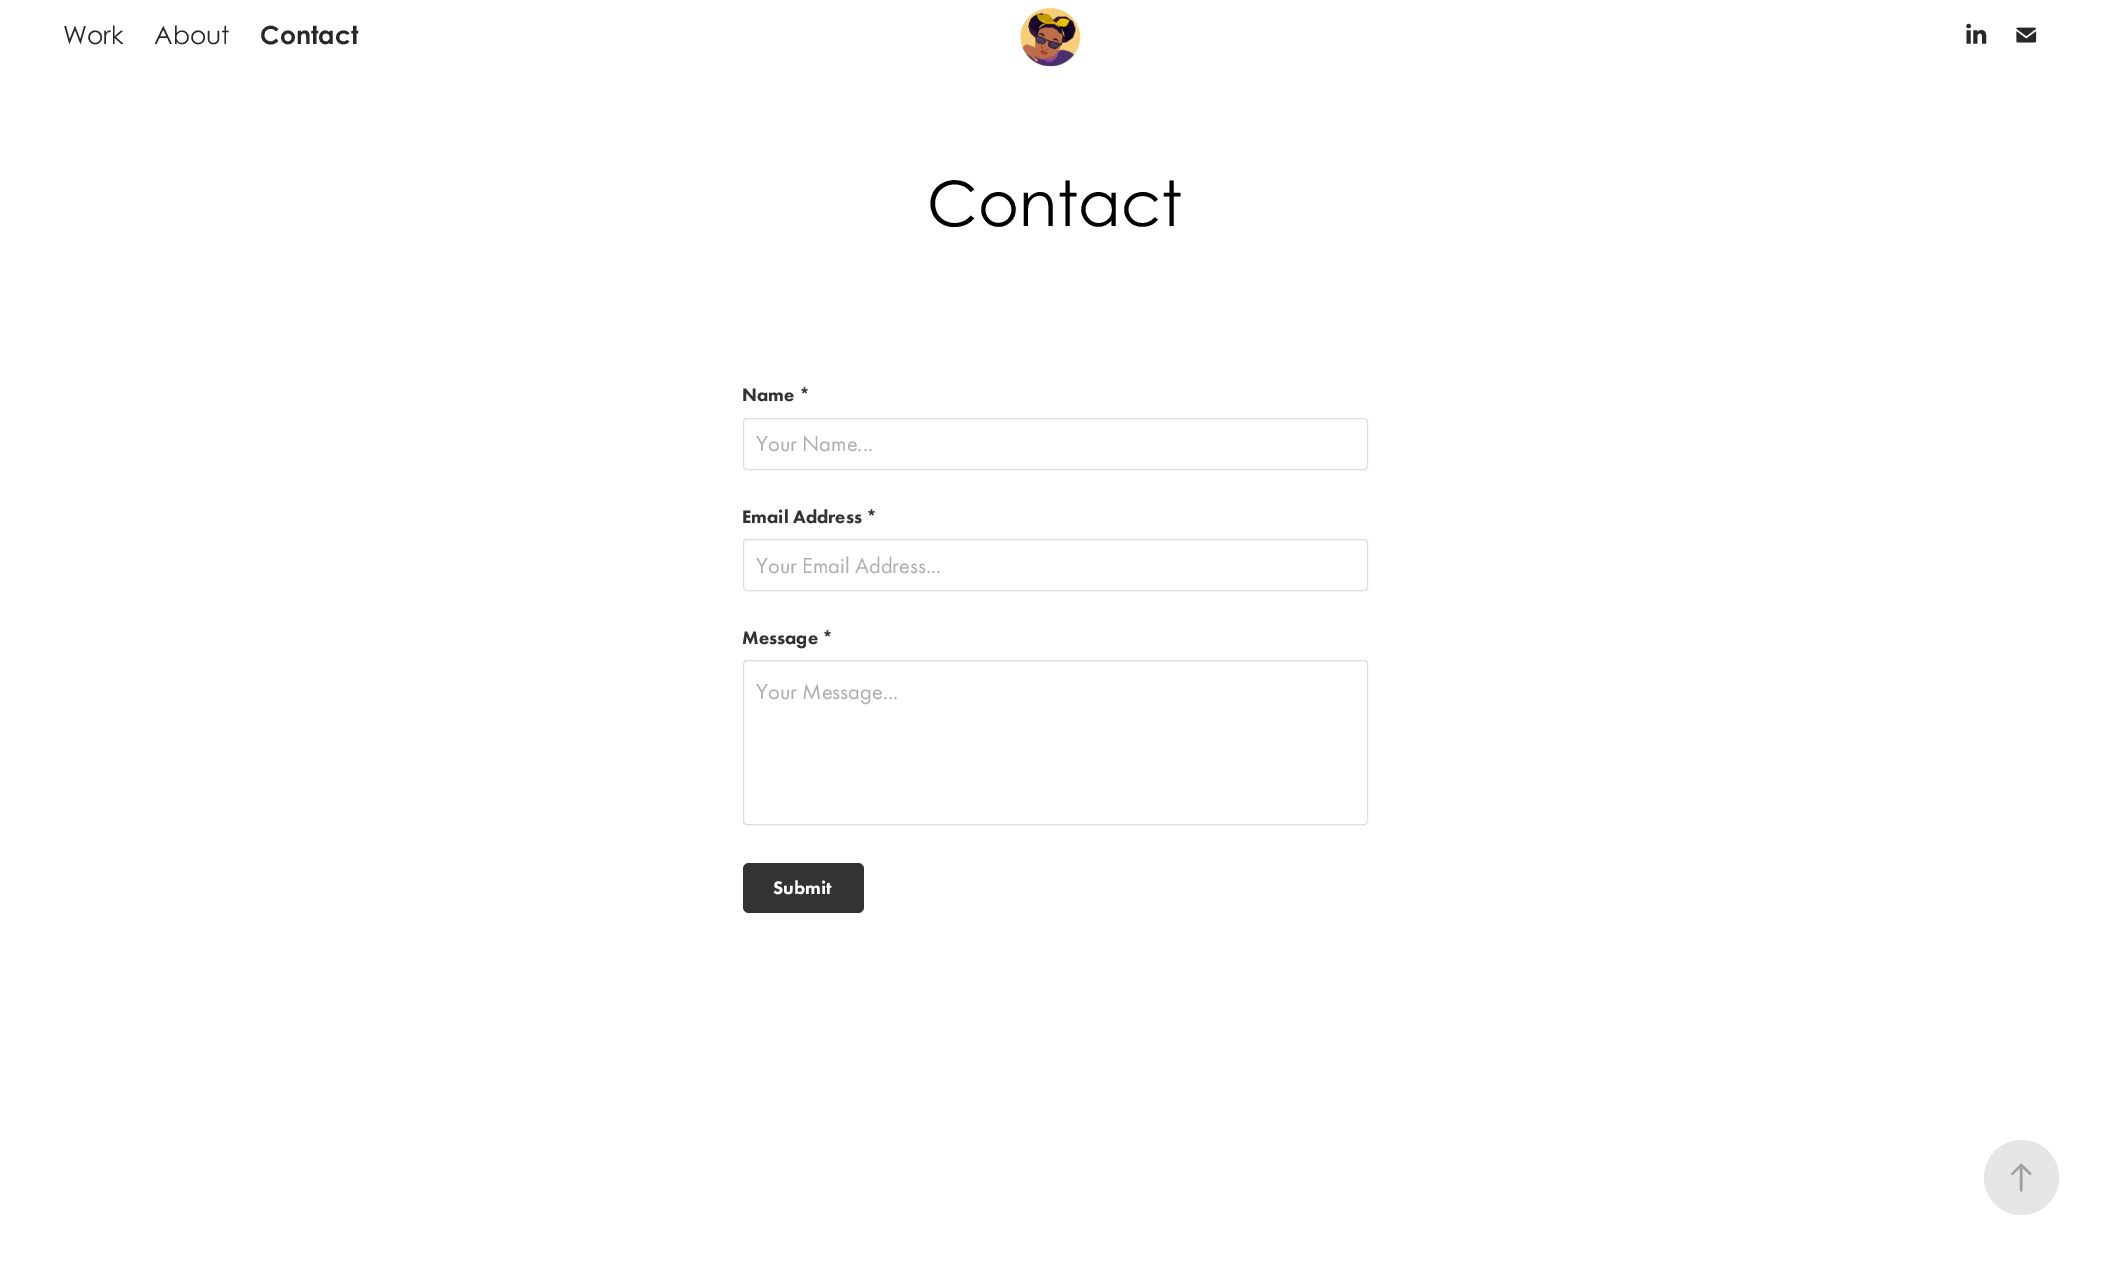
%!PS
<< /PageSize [2108 1264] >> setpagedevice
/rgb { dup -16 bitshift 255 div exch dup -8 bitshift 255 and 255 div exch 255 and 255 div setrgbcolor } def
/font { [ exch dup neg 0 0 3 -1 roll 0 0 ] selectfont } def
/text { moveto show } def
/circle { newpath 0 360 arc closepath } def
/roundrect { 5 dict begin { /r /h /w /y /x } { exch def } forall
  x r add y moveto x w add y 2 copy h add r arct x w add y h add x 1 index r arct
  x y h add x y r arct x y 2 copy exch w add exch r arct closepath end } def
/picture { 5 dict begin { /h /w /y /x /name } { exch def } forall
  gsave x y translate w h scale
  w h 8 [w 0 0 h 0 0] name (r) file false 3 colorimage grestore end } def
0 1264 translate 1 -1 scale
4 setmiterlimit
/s1 { /CenturyGothic-Regular 25 font 16#282828 rgb } def
/s2 { /CenturyGothic-Bold 25 font 16#282828 rgb } def
/s3 { /CenturyGothic-Regular 62.5 font 16#000000 rgb } def
/s4 { /FuturaPT-Black 18.75 font 16#333333 rgb } def
/s5 { /FuturaPT-Regular 22.5 font 16#ADADAD rgb } def
/s6 { /FuturaPT-Black 18.75 font 16#FFFFFF rgb } def
16#FFFFFF rgb
0 0 2108 1264 rectfill
s1
(Work) 63 44 text
(About) 154 44 text
s2
(Contact) 260 44 text
(pic1.raw) 1020 7 61 60 picture
(pic2.raw) 1966 23 21 21 picture
(pic3.raw) 2016 27 21 16 picture
s3
(Contact) 927 226 text
s4
(Name *) 742 401 text
16#DDDDDD rgb
743.5 418.5 624 51 3.5 roundrect stroke
s5
(Your Name...) 756 451 text
s4
(Email Address *) 742 523 text
16#DDDDDD rgb
743.5 539.5 624 51 3.5 roundrect stroke
s5
(Your Email Address...) 756 573 text
s4
(Message *) 742 644 text
16#DDDDDD rgb
743.5 660.5 624 164 3.5 roundrect stroke
s5
(Your Message...) 756 699 text
16#333333 rgb
743 863 121 50 6 roundrect fill
s6
(Submit) 773 894 text
16#E6E6E6 rgb
2021.5 1177.5 37.5 circle fill
(pic4.raw) 2011 1163 21 29 picture
showpage
